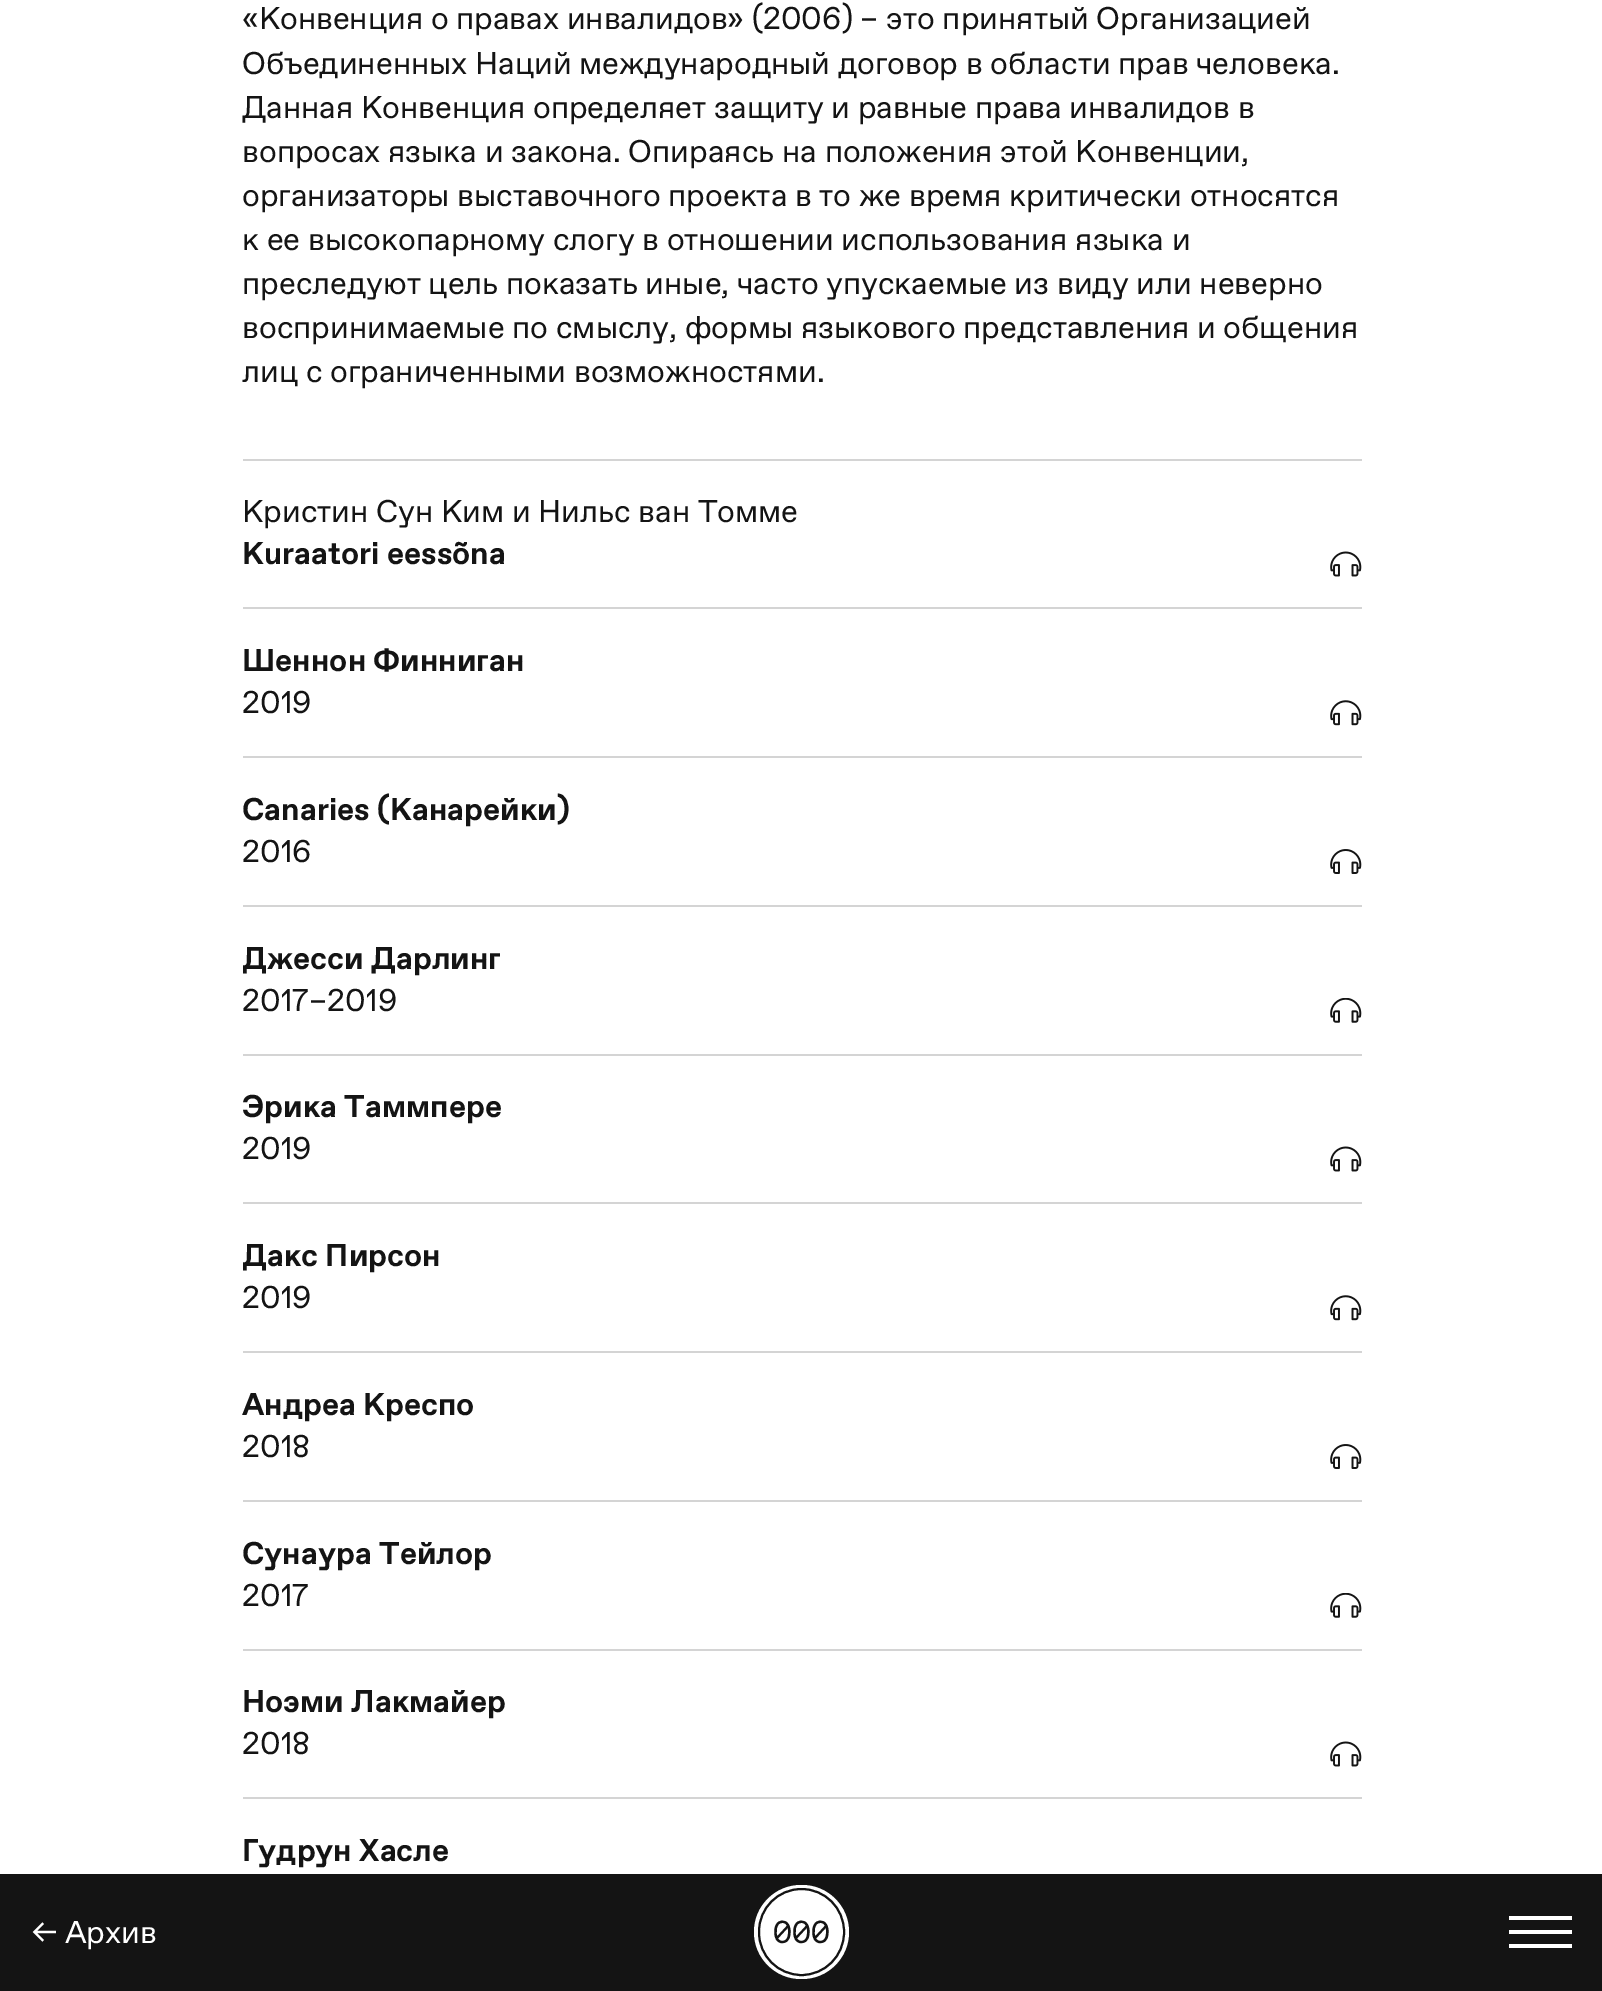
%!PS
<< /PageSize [1602 1991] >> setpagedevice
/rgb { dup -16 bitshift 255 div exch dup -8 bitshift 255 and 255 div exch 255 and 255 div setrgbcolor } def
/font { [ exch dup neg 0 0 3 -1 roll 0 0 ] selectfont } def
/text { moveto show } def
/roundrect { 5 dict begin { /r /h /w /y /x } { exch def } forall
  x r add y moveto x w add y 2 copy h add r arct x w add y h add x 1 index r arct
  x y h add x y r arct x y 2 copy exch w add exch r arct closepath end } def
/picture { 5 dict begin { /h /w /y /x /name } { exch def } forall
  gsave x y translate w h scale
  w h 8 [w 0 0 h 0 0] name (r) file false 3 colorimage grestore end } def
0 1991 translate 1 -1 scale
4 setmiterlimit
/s1 { /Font-Light 31.5 font 16#141414 rgb } def
/s2 { /Font-Bold 31.5 font 16#141414 rgb } def
/s3 { /Font-Light 31.5 font 16#FFFFFF rgb } def
/s4 { /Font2-Light 31.5 font 16#141414 rgb } def
16#FFFFFF rgb
0 0 1602 1991 rectfill
s1
(«Конвенция о правах инвалидов» \(2006\) – это принятый Организацией) 242 29 text
(Объединенных Наций международный договор в области прав человека.) 242 74 text
(Данная Конвенция определяет защиту и равные права инвалидов в) 242 118 text
(вопросах языка и закона. Опираясь на положения этой Конвенции,) 242 162 text
(организаторы выставочного проекта в то же время критически относятся) 242 206 text
(к ее высокопарному слогу в отношении использования языка и) 242 250 text
(преследуют цель показать иные, часто упускаемые из виду или неверно) 242 294 text
(воспринимаемые по смыслу, формы языкового представления и общения) 242 338 text
(лиц с ограниченными возможностями.) 242 382 text
16#D4D4D4 rgb
243 459 1119 2 rectfill
243 607 1119 2 rectfill
s1
(Кристин Сун Ким и Нильс ван Томме) 242 522 text
s2
(Kuraatori eessõna) 242 564 text
(pic1.raw) 1330 551 32 26 picture
16#D4D4D4 rgb
243 756 1119 2 rectfill
s2
(Шеннон Финниган) 242 671 text
s1
(2019) 242 713 text
(pic2.raw) 1330 700 32 26 picture
16#D4D4D4 rgb
243 905 1119 2 rectfill
s2
(Canaries \(Канарейки\)) 242 820 text
s1
(2016) 242 862 text
(pic3.raw) 1330 849 32 25 picture
16#D4D4D4 rgb
243 1054 1119 2 rectfill
gsave
243 938 258 42 rectclip
s2
(Джесси Дарлинг) 242 969 text
grestore
s1
(2017–2019) 242 1011 text
(pic4.raw) 1330 998 32 25 picture
16#D4D4D4 rgb
243 1202 1119 2 rectfill
s2
(Эрика Таммпере) 242 1117 text
s1
(2019) 242 1159 text
(pic1.raw) 1330 1146 32 26 picture
16#D4D4D4 rgb
243 1351 1119 2 rectfill
gsave
243 1236 198 42 rectclip
s2
(Дакс Пирсон) 242 1266 text
grestore
s1
(2019) 242 1308 text
(pic2.raw) 1330 1295 32 26 picture
16#D4D4D4 rgb
243 1500 1119 2 rectfill
s2
(Андреа Креспо) 242 1415 text
s1
(2018) 242 1457 text
(pic3.raw) 1330 1444 32 25 picture
16#D4D4D4 rgb
243 1649 1119 2 rectfill
s2
(Сунаура Тейлор) 242 1564 text
s1
(2017) 242 1606 text
(pic4.raw) 1330 1593 32 25 picture
16#D4D4D4 rgb
243 1797 1119 2 rectfill
s2
(Ноэми Лакмайер) 242 1712 text
s1
(2018) 242 1754 text
(pic1.raw) 1330 1741 32 26 picture
s2
(Гудрун Хасле) 242 1861 text
0 1874 1602 117 rectfill
s3
(← Aрхив) 32 1943 text
754 1885 95 94 47 roundrect fill
16#141414 rgb
2 setlinewidth
759 1889 85 86 42.5 roundrect stroke
s4
(000) 773 1943 text
16#FFFFFF rgb
1509 1916 63 4 rectfill
1509 1930 63 4 rectfill
1509 1944 63 4 rectfill
showpage
